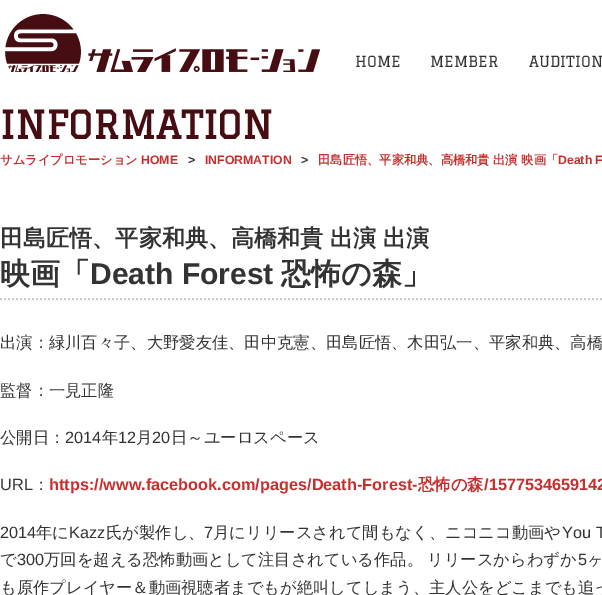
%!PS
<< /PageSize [602 595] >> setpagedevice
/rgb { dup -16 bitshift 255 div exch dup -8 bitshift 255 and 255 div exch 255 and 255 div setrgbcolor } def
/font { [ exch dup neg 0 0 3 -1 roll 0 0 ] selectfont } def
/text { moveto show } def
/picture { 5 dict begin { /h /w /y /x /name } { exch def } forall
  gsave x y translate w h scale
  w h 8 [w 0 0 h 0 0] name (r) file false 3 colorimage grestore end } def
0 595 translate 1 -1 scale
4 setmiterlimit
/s1 { /Graduate-Regular 15 font 16#333333 rgb } def
/s2 { /Graduate-Bold 38 font 16#460D12 rgb } def
/s3 { /WenQuanYiZenHei-Bold 12.25 font 16#C72F2F rgb } def
/s4 { /LiberationSans-Bold 12.25 font 16#C72F2F rgb } def
/s5 { /WenQuanYiZenHei-Bold 23.1 font 16#333333 rgb } def
/s6 { /WenQuanYiZenHei-Bold 30 font 16#333333 rgb } def
/s7 { /LiberationSans-Bold 30 font 16#333333 rgb } def
/s8 { /WenQuanYiZenHei-Medium 16.3 font 16#333333 rgb } def
/s9 { /LiberationSans-Regular 16.3 font 16#333333 rgb } def
/s10 { /LiberationSans-Bold 16.3 font 16#C72F2F rgb } def
/s11 { /WenQuanYiZenHei-Bold 16.3 font 16#C72F2F rgb } def
16#FFFFFF rgb
0 0 602 595 rectfill
(pic1.raw) 5 14 316 59 picture
s1
(HOME) 355 67 text
(MEMBER) 430 67 text
(AUDITION) 529 67 text
s2
(INFORMATION) 0 139 text
s3
(サムライプロモーション) 0 164 text
s4
(HOME) 141 164 text
16#333333 rgb
188 164 moveto 10 0 (>) ashow
s4
(INFORMATION) 205 164 text
16#333333 rgb
301 164 moveto 10 0 (>) ashow
s3
(田島匠悟、平家和典、高橋和貴 出演 映画「) 318 164 text
s4
(Death F) 558 164 text
s5
(田島匠悟、平家和典、高橋和貴) 0 246 text
(出演) 330 246 text
(出演) 383 246 text
16#CCCCCC rgb
2 setlinewidth
[2 2] 0 setdash
0 299 moveto 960 299 lineto stroke
s6
(映画「) 0 284 text
s7
(Death Forest) 90 284 text
s6
(恐怖の森」) 281 284 text
/WenQuanYiZenHei-Medium 16.3 font
0 348 moveto -1 0 32 (出演：緑川百々子、大野愛友佳、田中克憲、田島匠悟、木田弘一、平家和典、高橋) widthshow
(監督：一見正隆) 0 396 text
(公開日：) 0 443 text
s9
(2014) 65 443 text
s8
(年) 102 443 text
s9
(12) 118 443 text
s8
(月) 136 443 text
s9
(20) 152 443 text
s8
(日～ユーロスペース) 171 443 text
s9
(URL) 0 490 text
s8
(：) 33 490 text
s10
(https://www.facebook.com/pages/Death-Forest-) 49 490 text
s11
(恐怖の森) 418 490 text
s10
(/1577534659142) 484 490 text
s9
(2014) 0 538 text
s8
(年に) 36 538 text
s9
(Kazz) 69 538 text
s8
(氏が製作し、) 106 538 text
s9
(7) 204 538 text
s8
(月にリリースされて間もなく、ニコニコ動画や) 213 538 text
s9
(You T) 562 538 text
s8
(で) 0 565 text
s9
(300) 17 565 text
/WenQuanYiZenHei-Medium 16.3 font
44 565 moveto -1 0 32 (万回を超える恐怖動画として注目されている作品。 リリースからわずか) widthshow
s9
(5) 578 565 text
s8
(ヶ) 587 565 text
(も原作プレイヤー＆動画視聴者までもが絶叫してしまう、主人公をどこまでも追っ) 0 593 text
showpage
